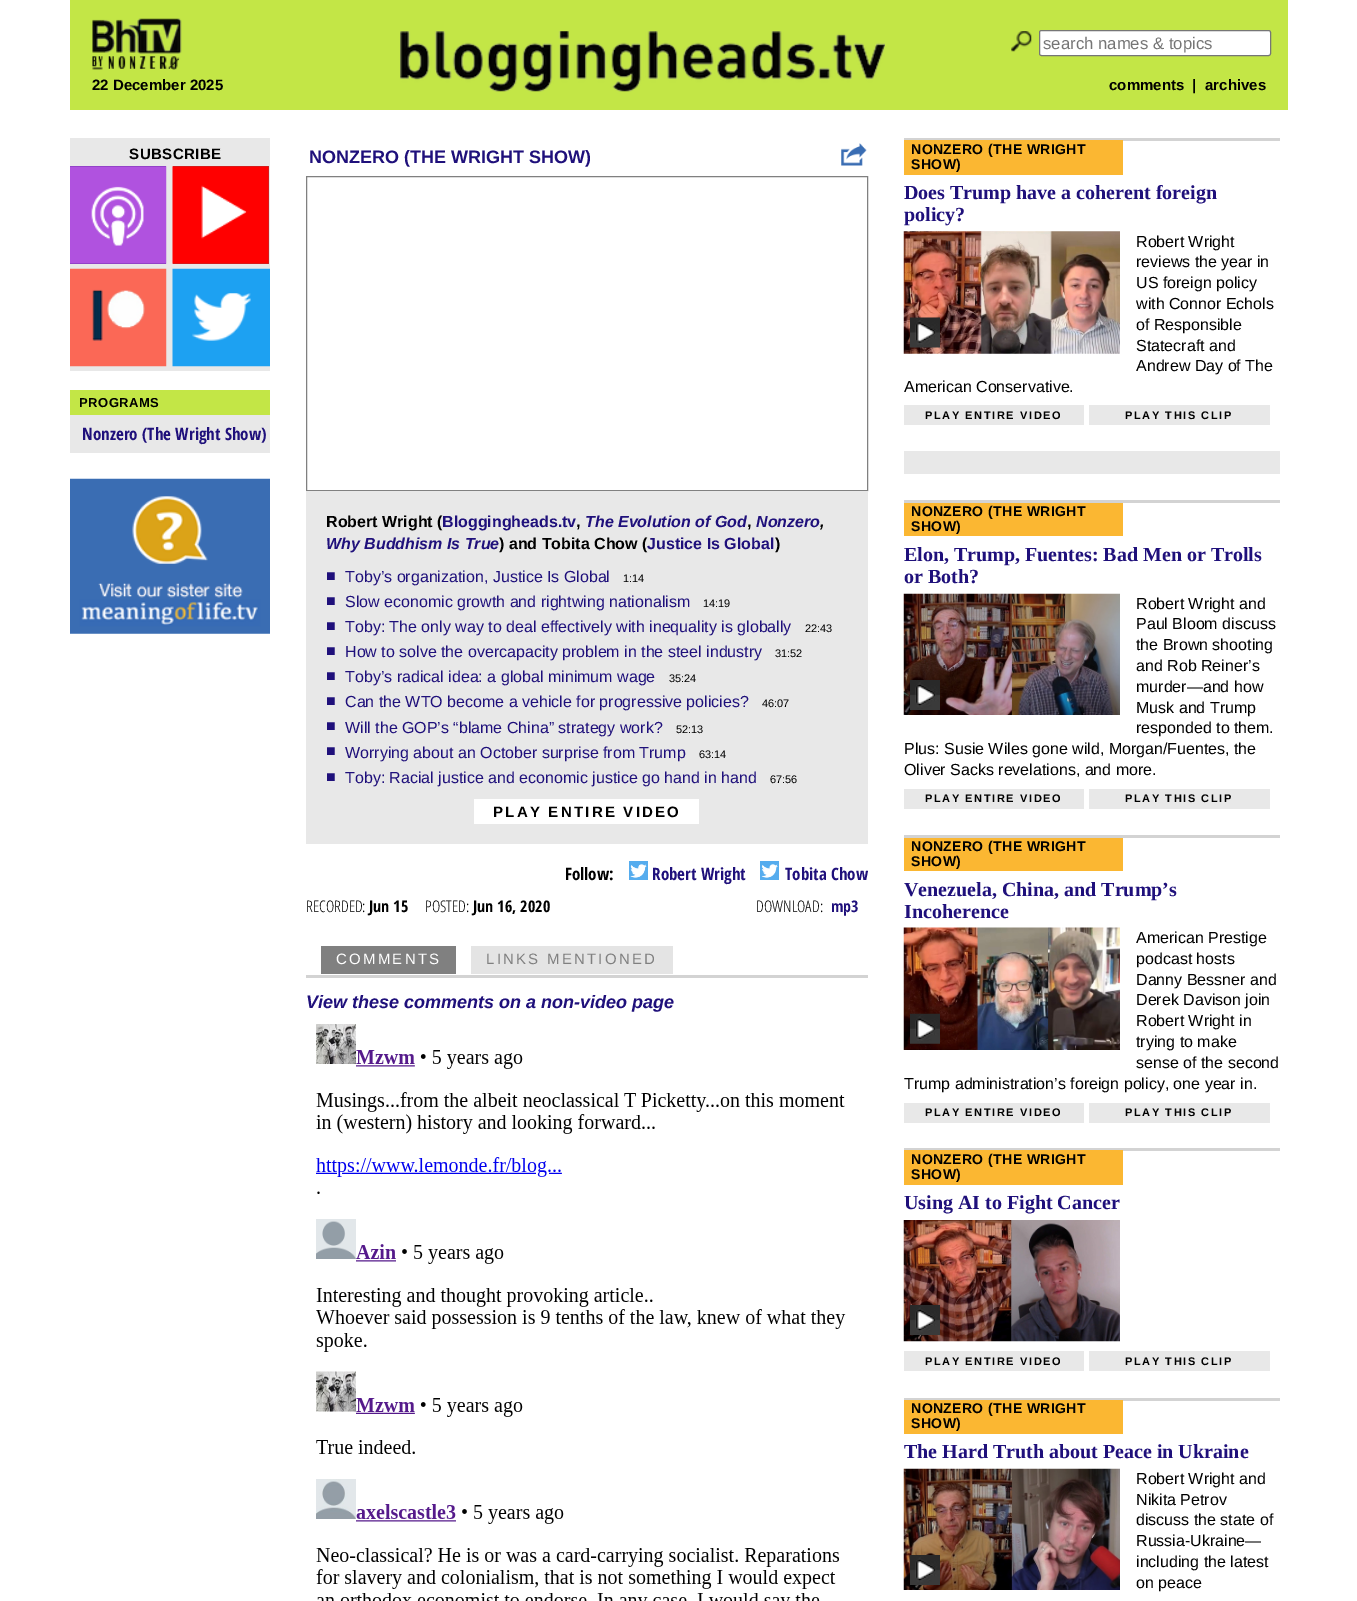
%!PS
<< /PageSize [1357 1601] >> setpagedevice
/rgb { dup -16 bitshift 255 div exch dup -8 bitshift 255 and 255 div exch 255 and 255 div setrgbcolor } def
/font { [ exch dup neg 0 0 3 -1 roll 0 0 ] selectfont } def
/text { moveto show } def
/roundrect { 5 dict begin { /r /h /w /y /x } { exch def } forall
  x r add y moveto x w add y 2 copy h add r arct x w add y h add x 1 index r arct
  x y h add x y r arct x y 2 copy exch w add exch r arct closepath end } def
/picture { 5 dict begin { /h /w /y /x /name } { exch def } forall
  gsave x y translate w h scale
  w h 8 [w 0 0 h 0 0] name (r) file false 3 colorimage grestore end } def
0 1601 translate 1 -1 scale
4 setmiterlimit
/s1 { /LiberationSans-Bold 15 font 16#000000 rgb } def
/s2 { /LiberationSans-Regular 16.75 font 16#757575 rgb } def
/s3 { /OpenSansCondensed-Bold 17 font 16#1F107B rgb } def
/s4 { /LiberationSans-Bold 18 font 16#1F107B rgb } def
/s5 { /LiberationSans-Bold 16 font 16#000000 rgb } def
/s6 { /LiberationSans-Bold 16 font 16#1F107B rgb } def
/s7 { /LiberationSans-BoldItalic 16 font 16#1F107B rgb } def
/s8 { /LiberationSans-BoldItalic 16 font 16#000000 rgb } def
/s9 { /LiberationSans-Regular 16 font 16#1F107B rgb } def
/s10 { /LiberationSans-Regular 11 font 16#000000 rgb } def
/s11 { /OpenSansCondensed-Bold 17 font 16#000000 rgb } def
/s12 { /OpenSansCondensed-Light 16 font 16#000000 rgb } def
/s13 { /OpenSansCondensed-Bold 16 font 16#000000 rgb } def
/s14 { /OpenSansCondensed-Bold 16 font 16#1F107B rgb } def
/s15 { /LiberationSans-BoldItalic 18 font 16#1F107B rgb } def
/s16 { /LiberationSerif-Bold 20 font 16#1F107B rgb } def
/s17 { /LiberationSans-Regular 16 font 16#000000 rgb } def
16#FFFFFF rgb
0 0 1357 1601 rectfill
16#C3E646 rgb
70 0 1218 110 rectfill
(pic1.raw) 92 18 90 52 picture
s1
(22 December 2025) 92 90 text
(pic2.raw) 400 31 485 61 picture
(pic3.raw) 1011 31 21 21 picture
16#FFFFFF rgb
1039.5 30.5 231 25 2 roundrect gsave fill grestore
16#767676 rgb
stroke
s2
(search names & topics) 1043 49 text
s1
(comments) 1109 90 text
(|) 1192 90 text
(archives) 1205 90 text
16#E8E8E8 rgb
70 138 200 233 rectfill
16#000000 rgb
129 159 moveto 0.5 0 (SUBSCRIBE) ashow
(pic4.raw) 70 166 97 98 picture
16#666666 rgb
173 166 96 98 rectfill
(pic5.raw) 172 166 97 98 picture
(pic6.raw) 70 268 97 99 picture
(pic7.raw) 172 268 98 99 picture
16#E8E8E8 rgb
70 415 200 38 rectfill
16#C3E646 rgb
70 390 200 25 rectfill
/LiberationSans-Bold 13 font
16#000000 rgb
79 407 moveto 0.5 0 (PROGRAMS) ashow
s3
(Nonzero \(The Wright Show\)) 82 440 text
(pic8.raw) 70 478 200 156 picture
s4
(NONZERO \(THE WRIGHT SHOW\)) 309 163 text
(pic9.raw) 841 143 26 23 picture
16#808080 rgb
306.5 176.5 561 314 rectstroke
16#E8E8E8 rgb
306 491 562 353 rectfill
s5
(Robert Wright \() 326 527 text
s6
(Bloggingheads.tv) 442 527 text
s5
(,) 576 527 text
s7
(The Evolution of God) 585 527 text
s5
(,) 747 527 text
s7
(Nonzero) 756 527 text
s8
(,) 820 527 text
s7
(Why Buddhism Is True) 326 549 text
s5
(\) and Tobita Chow \() 499 549 text
s6
(Justice Is Global) 647 549 text
s5
(\)) 775 549 text
s9
(■) 326 581 text
(Toby’s organization, Justice Is Global) 345 582 text
s10
(1:14) 623 582 text
s9
(■) 326 606 text
(Slow economic growth and rightwing nationalism) 345 607 text
s10
(14:19) 703 607 text
s9
(■) 326 631 text
(Toby: The only way to deal effectively with inequality is globally) 345 632 text
s10
(22:43) 805 632 text
s9
(■) 326 656 text
(How to solve the overcapacity problem in the steel industry) 345 657 text
s10
(31:52) 775 657 text
s9
(■) 326 681 text
(Toby’s radical idea: a global minimum wage) 345 682 text
s10
(35:24) 669 682 text
s9
(■) 326 706 text
(Can the WTO become a vehicle for progressive policies?) 345 707 text
s10
(46:07) 762 707 text
s9
(■) 326 731 text
(Will the GOP’s “blame China” strategy work?) 345 733 text
s10
(52:13) 676 733 text
s9
(■) 326 756 text
(Worrying about an October surprise from Trump) 345 758 text
s10
(63:14) 699 758 text
s9
(■) 326 782 text
(Toby: Racial justice and economic justice go hand in hand) 345 783 text
s10
(67:56) 770 783 text
16#FFFFFF rgb
474 799 225 25 rectfill
/LiberationSans-Bold 15 font
16#000000 rgb
493 817 moveto 2.25 0 (PLAY ENTIRE VIDEO) ashow
s11
(Follow:) 565 880 text
16#55ACEE rgb
629 861 19 19 rectfill
(pic10.raw) 630 864 17 14 picture
s3
(Robert Wright) 652 880 text
16#55ACEE rgb
760 861 19 19 rectfill
(pic11.raw) 761 864 17 14 picture
s3
(Tobita Chow) 785 880 text
s12
(RECORDED:) 306 912 text
s13
(Jun 15) 369 912 text
s12
(POSTED:) 425 912 text
s13
(Jun 16, 2020) 473 912 text
s12
(DOWNLOAD:) 756 912 text
s14
(mp3) 831 912 text
16#D3D3D3 rgb
306 975 562 3 rectfill
16#808080 rgb
321 946 135 28 rectfill
/LiberationSans-Regular 15 font
16#FFFFFF rgb
336 964 moveto 2.25 0 (COMMENTS) ashow
16#E4E4E4 rgb
471 946 202 28 rectfill
16#808080 rgb
486 964 moveto 2.25 0 (LINKS MENTIONED) ashow
s15
(View these comments on a non-video page) 306 1008 text
(pic12.raw) 316 1024 530 577 picture
16#D3D3D3 rgb
904 138 376 3 rectfill
16#FBB732 rgb
904 140 219 35 rectfill
/LiberationSans-Bold 14 font
16#000000 rgb
911 154 moveto 0.4 0 (NONZERO \(THE WRIGHT) ashow
911 169 moveto 0.4 0 (SHOW\)) ashow
s16
(Does Trump have a coherent foreign) 904 199 text
(policy?) 904 221 text
(pic13.raw) 903 231 217 123 picture
(pic14.raw) 910 317 30 31 picture
s17
(Robert Wright) 1136 247 text
(reviews the year in) 1136 267 text
(US foreign policy) 1136 288 text
(with Connor Echols) 1136 309 text
(of Responsible) 1136 330 text
(Statecraft and) 1136 351 text
(Andrew Day of The) 1136 371 text
(American Conservative.) 904 392 text
16#E8E8E8 rgb
904 405 180 20 rectfill
/LiberationSans-Bold 11 font
16#000000 rgb
925 419 moveto 1.6 0 (PLAY ENTIRE VIDEO) ashow
16#E8E8E8 rgb
1089 405 181 20 rectfill
16#000000 rgb
1125 419 moveto 1.6 0 (PLAY THIS CLIP) ashow
16#E8E8E8 rgb
904 451 376 23 rectfill
16#D3D3D3 rgb
904 500 376 3 rectfill
16#FBB732 rgb
904 503 219 33 rectfill
/LiberationSans-Bold 14 font
16#000000 rgb
911 516 moveto 0.4 0 (NONZERO \(THE WRIGHT) ashow
911 531 moveto 0.4 0 (SHOW\)) ashow
s16
(Elon, Trump, Fuentes: Bad Men or Trolls) 904 561 text
(or Both?) 904 583 text
(pic15.raw) 903 593 217 122 picture
(pic16.raw) 910 680 30 30 picture
s17
(Robert Wright and) 1136 609 text
(Paul Bloom discuss) 1136 629 text
(the Brown shooting) 1136 650 text
(and Rob Reiner’s) 1136 671 text
(murder—and how) 1136 692 text
(Musk and Trump) 1136 713 text
(responded to them.) 1136 733 text
(Plus: Susie Wiles gone wild, Morgan/Fuentes, the) 904 754 text
(Oliver Sacks revelations, and more.) 904 775 text
16#E8E8E8 rgb
904 789 180 20 rectfill
/LiberationSans-Bold 11 font
16#000000 rgb
925 802 moveto 1.6 0 (PLAY ENTIRE VIDEO) ashow
16#E8E8E8 rgb
1089 789 181 20 rectfill
16#000000 rgb
1125 802 moveto 1.6 0 (PLAY THIS CLIP) ashow
16#D3D3D3 rgb
904 835 376 3 rectfill
16#FBB732 rgb
904 838 219 33 rectfill
/LiberationSans-Bold 14 font
16#000000 rgb
911 851 moveto 0.4 0 (NONZERO \(THE WRIGHT) ashow
911 866 moveto 0.4 0 (SHOW\)) ashow
s16
(Venezuela, China, and Trump’s) 904 896 text
(Incoherence) 904 918 text
(pic17.raw) 903 927 217 123 picture
(pic18.raw) 910 1013 30 31 picture
s17
(American Prestige) 1136 943 text
(podcast hosts) 1136 964 text
(Danny Bessner and) 1136 985 text
(Derek Davison join) 1136 1005 text
(Robert Wright in) 1136 1026 text
(trying to make) 1136 1047 text
(sense of the second) 1136 1068 text
(Trump administration’s foreign policy, one year in.) 904 1089 text
16#E8E8E8 rgb
904 1103 180 20 rectfill
/LiberationSans-Bold 11 font
16#000000 rgb
925 1116 moveto 1.6 0 (PLAY ENTIRE VIDEO) ashow
16#E8E8E8 rgb
1089 1103 181 20 rectfill
16#000000 rgb
1125 1116 moveto 1.6 0 (PLAY THIS CLIP) ashow
16#D3D3D3 rgb
904 1148 376 3 rectfill
16#FBB732 rgb
904 1150 219 35 rectfill
/LiberationSans-Bold 14 font
16#000000 rgb
911 1164 moveto 0.4 0 (NONZERO \(THE WRIGHT) ashow
911 1179 moveto 0.4 0 (SHOW\)) ashow
s16
(Using AI to Fight Cancer) 904 1209 text
(pic19.raw) 903 1220 217 122 picture
(pic16.raw) 910 1305 30 30 picture
16#E8E8E8 rgb
904 1351 180 20 rectfill
/LiberationSans-Bold 11 font
16#000000 rgb
925 1365 moveto 1.6 0 (PLAY ENTIRE VIDEO) ashow
16#E8E8E8 rgb
1089 1351 181 20 rectfill
16#000000 rgb
1125 1365 moveto 1.6 0 (PLAY THIS CLIP) ashow
16#D3D3D3 rgb
904 1398 376 3 rectfill
16#FBB732 rgb
904 1400 219 34 rectfill
/LiberationSans-Bold 14 font
16#000000 rgb
911 1413 moveto 0.4 0 (NONZERO \(THE WRIGHT) ashow
911 1428 moveto 0.4 0 (SHOW\)) ashow
s16
(The Hard Truth about Peace in Ukraine) 904 1458 text
(pic20.raw) 903 1468 217 122 picture
(pic21.raw) 910 1555 30 30 picture
s17
(Robert Wright and) 1136 1484 text
(Nikita Petrov) 1136 1505 text
(discuss the state of) 1136 1525 text
(Russia-Ukraine—) 1136 1546 text
(including the latest) 1136 1567 text
(on peace) 1136 1588 text
showpage
